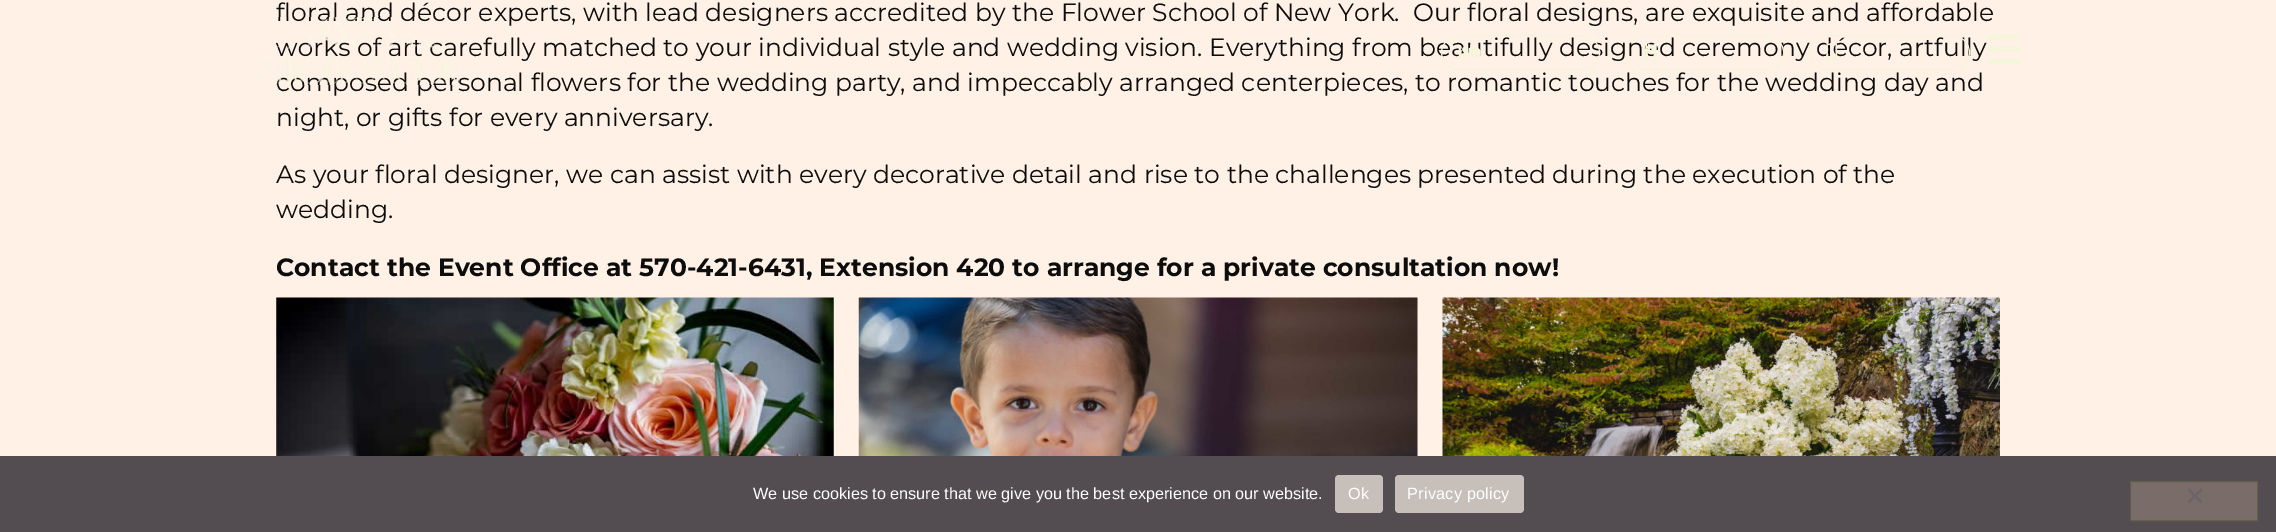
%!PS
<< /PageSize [2276 532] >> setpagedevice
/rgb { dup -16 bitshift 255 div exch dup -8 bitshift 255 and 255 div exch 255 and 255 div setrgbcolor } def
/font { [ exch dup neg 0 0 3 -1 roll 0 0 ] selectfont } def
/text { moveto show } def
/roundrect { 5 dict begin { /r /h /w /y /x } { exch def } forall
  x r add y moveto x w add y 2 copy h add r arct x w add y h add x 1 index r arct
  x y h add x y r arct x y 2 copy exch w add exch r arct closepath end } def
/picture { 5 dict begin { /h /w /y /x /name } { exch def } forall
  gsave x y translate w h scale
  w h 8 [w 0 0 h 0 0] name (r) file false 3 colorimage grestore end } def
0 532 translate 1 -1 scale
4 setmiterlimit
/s1 { /Montserrat-Thin 25 font 16#0D0D0D rgb } def
/s2 { /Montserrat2-Thin 25 font 16#0D0D0D rgb } def
/s3 { /LiberationSans-Regular 16.25 font 16#FFFFFF rgb } def
16#FFF1E6 rgb
0 0 2276 532 rectfill
s1
(floral and décor experts, with lead designers accredited by the Flower School of New York.  Our floral designs, are exquisite and affordable) 276 21 text
(works of art carefully matched to your individual style and wedding vision. Everything from beautifully designed ceremony décor, artfully) 276 56 text
(composed personal flowers for the wedding party, and impeccably arranged centerpieces, to romantic touches for the wedding day and) 276 91 text
(night, or gifts for every anniversary.) 276 126 text
(As your floral designer, we can assist with every decorative detail and rise to the challenges presented during the execution of the) 276 183 text
(wedding.) 276 218 text
s2
(Contact the Event Office at 570-421-6431, Extension 420 to arrange for a private consultation now!) 276 276 text
(pic1.raw) 276 297 558 159 picture
(pic2.raw) 858 297 560 159 picture
(pic3.raw) 1442 297 558 159 picture
(pic4.raw) 255 17 204 68 picture
16#F5F5DC rgb
1441.5 35.5 158 34 17 roundrect stroke
(pic5.raw) 1458 45 23 14 picture
1625.5 35.5 158 34 17 roundrect stroke
(pic6.raw) 1642 43 15 18 picture
1809.5 35.5 160 34 17 roundrect stroke
(pic7.raw) 1826 43 12 18 picture
(pic8.raw) 1987 34 34 30 picture
16#534C50 rgb
0 456 2276 76 rectfill
s3
(We use cookies to ensure that we give you the best experience on our website.) 753 499 text
16#C7C0BA rgb
1335 475 48 38 4 roundrect fill
16#FFFFFF rgb
1348 499 moveto 0.25 0 (Ok) ashow
16#C7C0BA rgb
1395 475 129 38 4 roundrect fill
16#FFFFFF rgb
1407 499 moveto 0.25 0 (Privacy policy) ashow
16#7A6D69 rgb
2130.5 481.5 moveto 2257.5 481.5 lineto 2257.5 520.5 lineto 2130.5 520.5 lineto closepath gsave fill grestore
16#61614A rgb
stroke
16#6A6668 rgb
2200.5 488.5 moveto 2202.5 490 lineto 2189.5 503.5 lineto 2187.5 501.5 lineto closepath fill
2187.5 490 moveto 2189.5 488.5 lineto 2202.5 501.5 lineto 2200.5 503.5 lineto closepath fill
showpage
